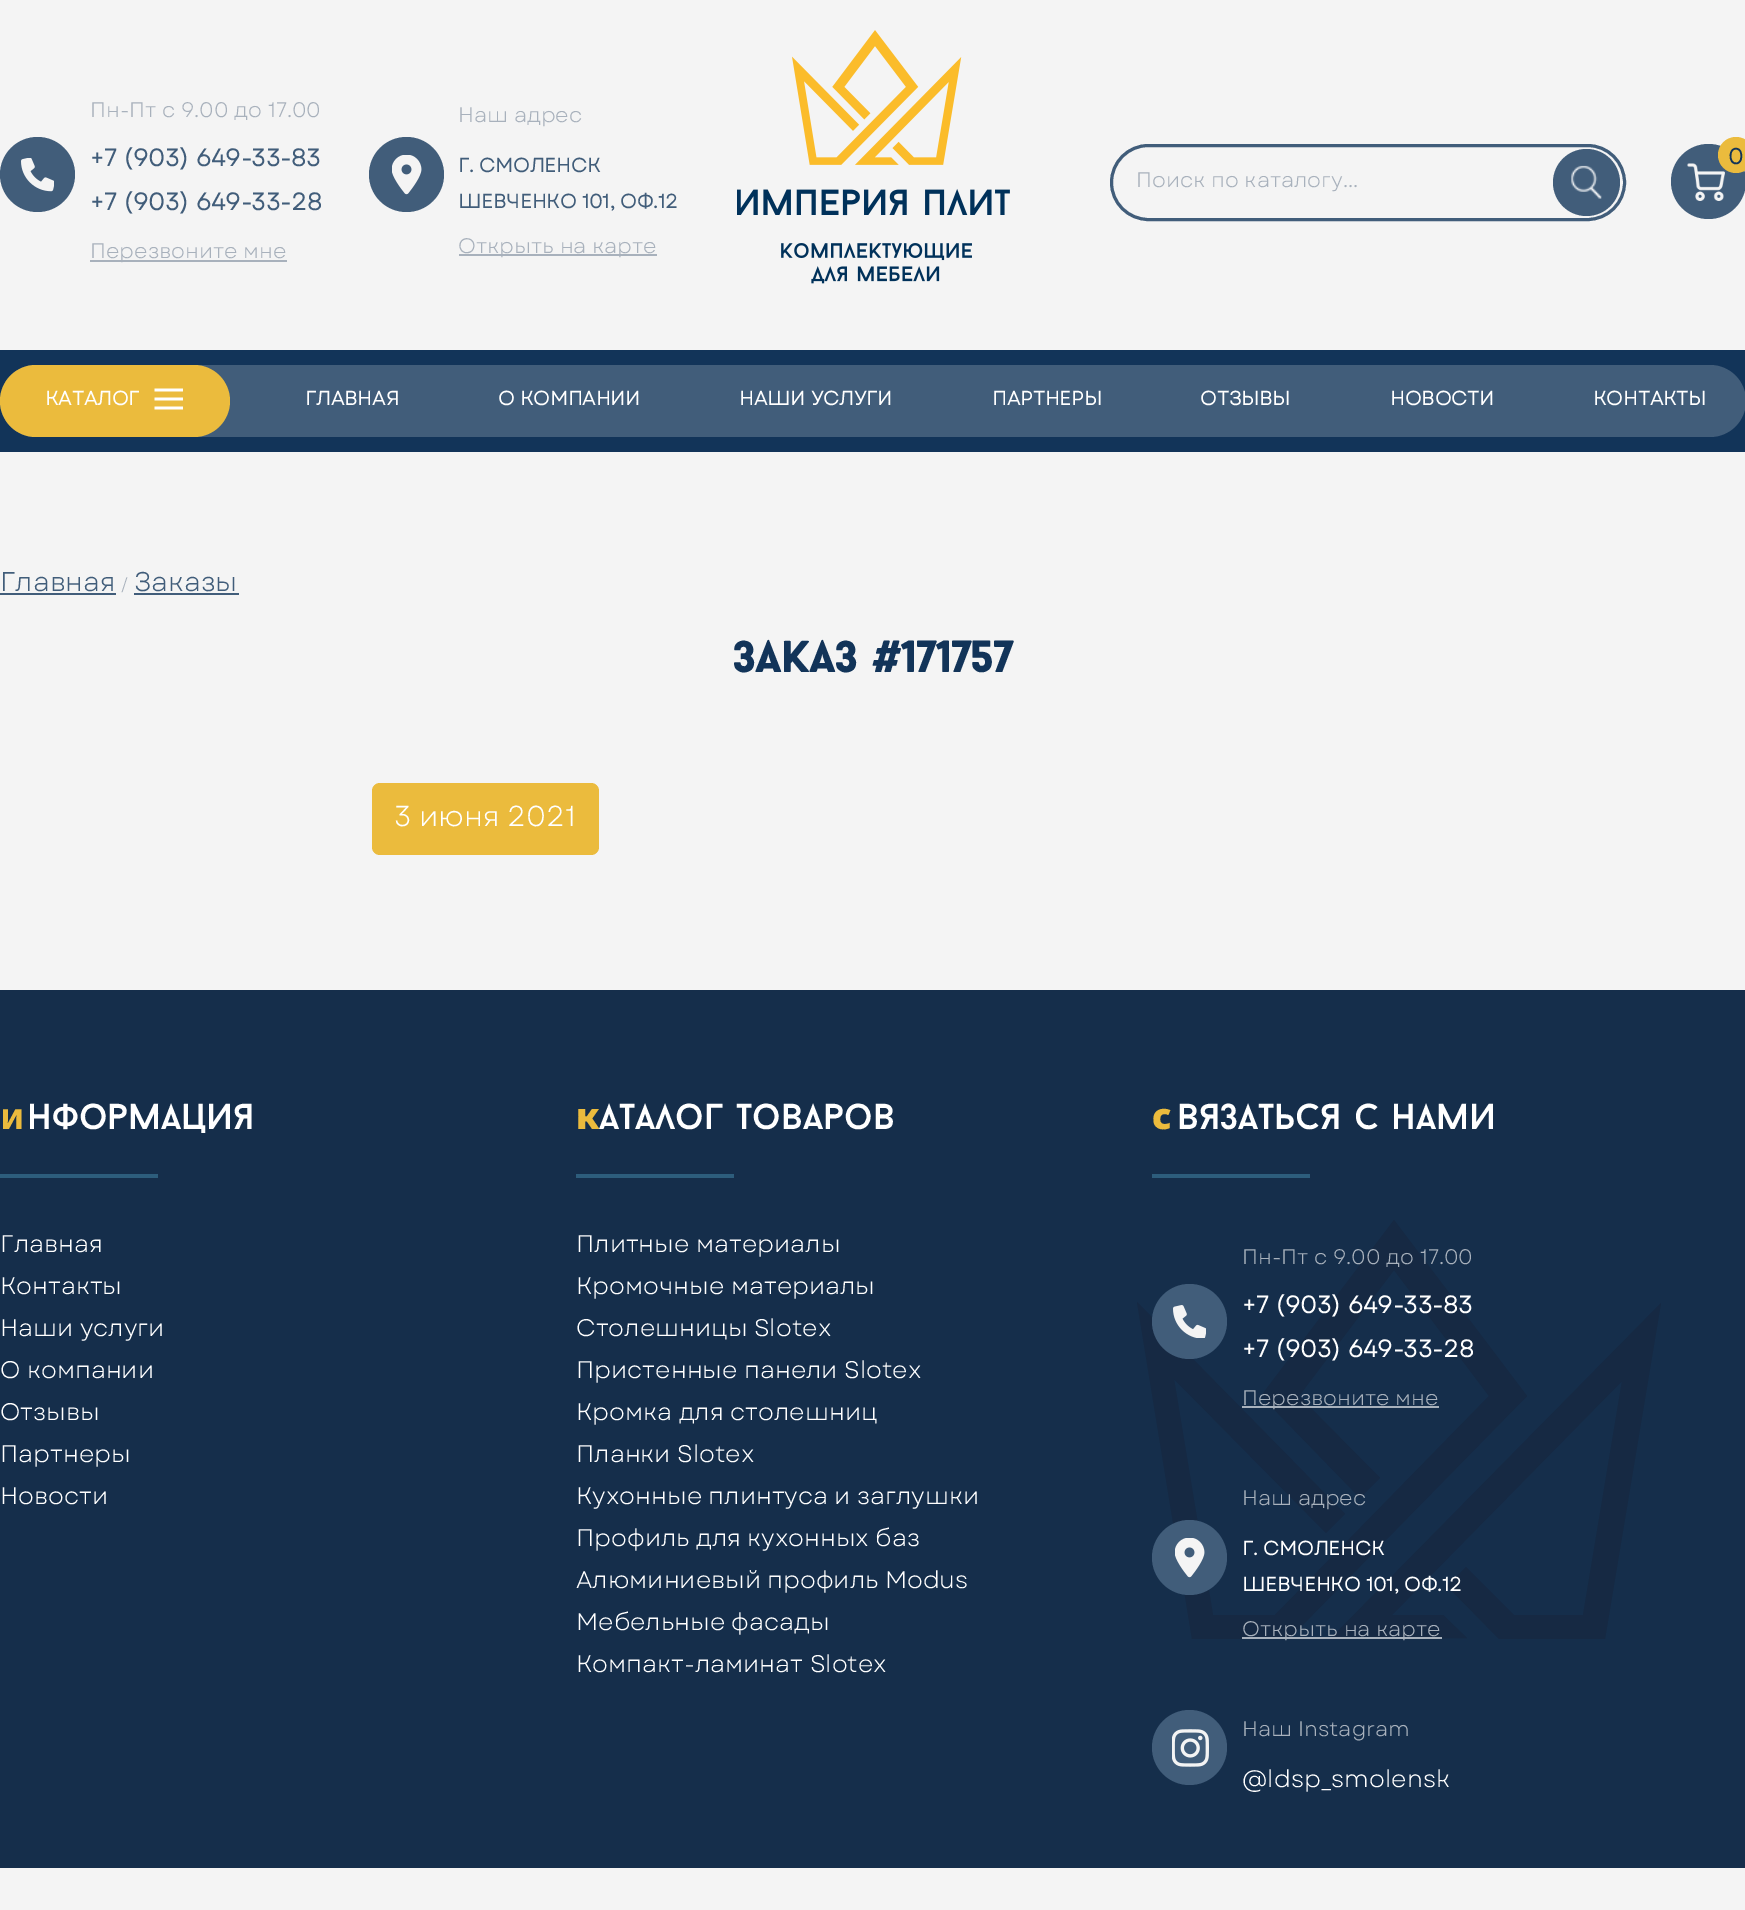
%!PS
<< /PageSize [1745 1910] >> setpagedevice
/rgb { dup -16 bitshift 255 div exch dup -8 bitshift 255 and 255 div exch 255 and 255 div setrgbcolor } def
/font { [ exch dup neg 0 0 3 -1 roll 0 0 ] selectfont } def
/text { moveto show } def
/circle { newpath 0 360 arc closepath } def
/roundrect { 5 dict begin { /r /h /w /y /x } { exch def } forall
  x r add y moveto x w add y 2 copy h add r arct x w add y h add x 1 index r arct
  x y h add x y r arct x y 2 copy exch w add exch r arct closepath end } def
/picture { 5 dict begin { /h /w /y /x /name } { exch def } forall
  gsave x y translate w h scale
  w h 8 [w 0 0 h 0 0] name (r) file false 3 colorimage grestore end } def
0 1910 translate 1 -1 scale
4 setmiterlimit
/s1 { /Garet-Regular 21 font 16#A8B1BC rgb } def
/s2 { /Garet-Bold 24 font 16#415D7A rgb } def
/s3 { /Garet-Bold 19.5 font 16#415D7A rgb } def
/s4 { /Garet-Bold 22 font 16#123459 rgb } def
/s5 { /Garet-Bold 19.5 font 16#FFFFFF rgb } def
/s6 { /Garet-Regular 27 font 16#415D7A rgb } def
/s7 { /Garet-Regular 18 font 16#A8B1BC rgb } def
/s8 { /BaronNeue-Black 45 font 16#123459 rgb } def
/s9 { /Garet-Regular 28.75 font 16#FFFFFF rgb } def
/s10 { /NotoSans-Bold 36 font 16#EBBB3D rgb } def
/s11 { /BaronNeue-Regular 36 font 16#FFFFFF rgb } def
/s12 { /Garet-Regular 24 font 16#FFFFFF rgb } def
/s13 { /NotoSans-Black 36 font 16#EBBB3D rgb } def
/s14 { /Garet-Bold 24 font 16#FFFFFF rgb } def
16#F4F4F4 rgb
0 0 1745 1910 rectfill
s1
(Пн-Пт с 9.00 до 17.00) 90 117 text
16#415D7A rgb
37.5 174.5 37.5 circle fill
(pic1.raw) 21 158 33 34 picture
s2
(+7 \(903\) 649-33-83) 90 166 text
(+7 \(903\) 649-33-28) 90 210 text
16#A8B1BC rgb
90 260 197 2 rectfill
s1
(Перезвоните мне) 90 258 text
(Наш адрес) 458 122 text
16#415D7A rgb
406.5 174.5 37.5 circle fill
(pic2.raw) 392 155 30 40 picture
s3
(Г. СМОЛЕНСК) 458 172 text
(ШЕВЧЕНКО 101, ОФ.12) 458 208 text
16#A8B1BC rgb
459 254 198 2 rectfill
s1
(Открыть на карте) 458 253 text
(pic3.raw) 737 30 273 254 picture
16#415D7A rgb
1708.5 181.5 37.5 circle fill
(pic4.raw) 1687 163 38 38 picture
16#EBBB3D rgb
1736 155 18 circle fill
s4
(0) 1728 164 text
16#415D7A rgb
3 setlinewidth
1111.5 145.5 513 74 37 roundrect stroke
s1
(Поиск по каталогу...) 1136 187 text
16#415D7A rgb
1586.5 182.5 33.5 circle fill
(pic5.raw) 1571 165 31 34 picture
16#123459 rgb
0 350 1745 102 rectfill
16#415D7A rgb
0 365 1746 72 36 roundrect fill
16#EBBB3D rgb
0 365 230 72 36 roundrect fill
s5
(КАТАЛОГ) 45 405 text
(pic6.raw) 154 388 29 22 picture
(ГЛАВНАЯ) 305 405 text
(О КОМПАНИИ) 498 405 text
(НАШИ УСЛУГИ) 739 405 text
(ПАРТНЕРЫ) 992 405 text
(ОТЗЫВЫ) 1200 405 text
(НОВОСТИ) 1390 405 text
(КОНТАКТЫ) 1593 405 text
s6
(Главная) 0 591 text
0 593 116 2 rectfill
s7
(/) 120 591 text
s6
(Заказы) 134 591 text
134 593 105 2 rectfill
s8
(заказ #171757) 733 672 text
16#EBBB3D rgb
372 783 227 72 8 roundrect fill
s9
(3 июня 2021) 394 826 text
16#152E4B rgb
0 990 1745 878 rectfill
16#162943 rgb
1345 1514 moveto 1326 1533 lineto 1174 1379 lineto 1213 1615 lineto 1275 1615 lineto 1489 1396 lineto 1394 1270 lineto 1299 1396 lineto 1380 1478 lineto 1360 1498 lineto 1261 1396 lineto 1394 1220 lineto 1527 1396 lineto 1289 1639 lineto 1192 1639 lineto 1137 1302 lineto closepath fill
1443 1615 moveto 1392 1615 lineto 1622 1381 lineto 1583 1615 lineto 1514 1615 lineto 1466 1567 lineto 1447 1586 lineto 1499 1639 lineto 1605 1639 lineto 1661 1303 lineto 1330 1639 lineto 1467 1638 lineto fill
16#2D5D7C rgb
0 1174 158 4 rectfill
s10
(и) 0 1129 text
s11
(нформация) 27 1129 text
s12
(Главная) 0 1252 text
(Контакты) 0 1294 text
(Наши услуги) 0 1336 text
(О компании) 0 1378 text
(Отзывы) 0 1420 text
(Партнеры) 0 1462 text
(Новости) 0 1504 text
16#2D5D7C rgb
576 1174 158 4 rectfill
s13
(к) 576 1129 text
s11
(аталог товаров) 599 1129 text
s12
(Плитные материалы) 576 1252 text
(Кромочные материалы) 576 1294 text
(Столешницы Slotex) 576 1336 text
(Пристенные панели Slotex) 576 1378 text
(Кромка для столешниц) 576 1420 text
(Планки Slotex) 576 1462 text
(Кухонные плинтуса и заглушки) 576 1504 text
(Профиль для кухонных баз) 576 1546 text
(Алюминиевый профиль Modus) 576 1588 text
(Мебельные фасады) 576 1630 text
(Компакт-ламинат Slotex) 576 1672 text
16#2D5D7C rgb
1152 1174 158 4 rectfill
s13
(с) 1152 1129 text
s11
(вязаться с нами) 1177 1129 text
s1
(Пн-Пт с 9.00 до 17.00) 1242 1264 text
16#415D7A rgb
1189.5 1321.5 37.5 circle fill
(pic7.raw) 1173 1305 33 33 picture
s14
(+7 \(903\) 649-33-83) 1242 1313 text
(+7 \(903\) 649-33-28) 1242 1357 text
16#A8B1BC rgb
1242 1406 197 2 rectfill
s1
(Перезвоните мне) 1242 1405 text
(Наш адрес) 1242 1505 text
16#415D7A rgb
1189.5 1557.5 37.5 circle fill
(pic2.raw) 1175 1538 30 40 picture
s5
(Г. СМОЛЕНСК) 1242 1555 text
(ШЕВЧЕНКО 101, ОФ.12) 1242 1591 text
16#A8B1BC rgb
1242 1637 200 2 rectfill
s1
(Открыть на карте) 1242 1636 text
16#415D7A rgb
1189.5 1747.5 37.5 circle fill
(pic8.raw) 1172 1729 37 38 picture
s1
(Наш Instagram) 1242 1736 text
s12
(@ldsp_smolensk) 1242 1787 text
showpage
